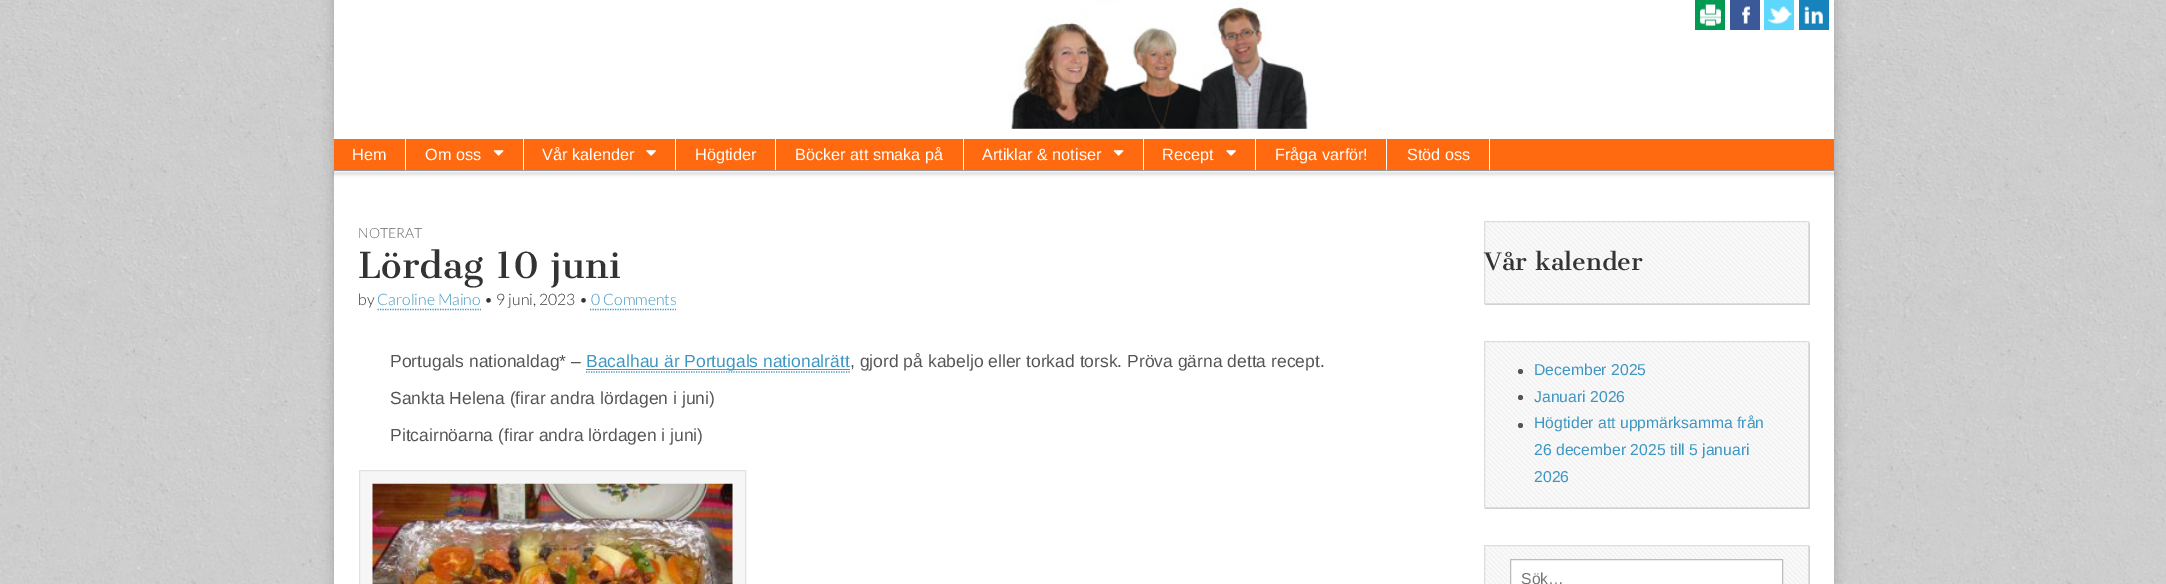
%!PS
<< /PageSize [2166 584] /PageUsesTransparency true >> setpagedevice
/rgb { dup -16 bitshift 255 div exch dup -8 bitshift 255 and 255 div exch 255 and 255 div setrgbcolor } def
/font { [ exch dup neg 0 0 3 -1 roll 0 0 ] selectfont } def
/text { moveto show } def
/alpha { dup .setfillconstantalpha .setstrokeconstantalpha } def
/circle { newpath 0 360 arc closepath } def
/roundrect { 5 dict begin { /r /h /w /y /x } { exch def } forall
  x r add y moveto x w add y 2 copy h add r arct x w add y h add x 1 index r arct
  x y h add x y r arct x y 2 copy exch w add exch r arct closepath end } def
/shadow { 12 dict begin { /a /b /q /h /w /y /x } { exch def } forall gsave /was 0 def
  9 -2 -9 { dup b mul 4 div /e exch def 1 sub .425 mul 2.718 exch exp 1 add a .99 .min exch div /now exch def
    1 1 now sub 1 was sub div sub alpha /was now def
    w h .min e 2 mul add 0 gt { x e sub y e sub w e 2 mul add h e 2 mul add
      q e add b .6 mul add w h .min 2 div e add .min 0 .max roundrect fill } if } for grestore end } def
/picture { 5 dict begin { /h /w /y /x /name } { exch def } forall
  gsave x y translate w h scale
  w h 8 [w 0 0 h 0 0] name (r) file false 3 colorimage grestore end } def
0 .pushpdf14devicefilter
0 584 translate 1 -1 scale
4 setmiterlimit
/s1 { /LiberationSans-Regular 16.25 font 16#FFFFFF rgb } def
/s2 { /Lato-Light 14 font 16#666666 rgb } def
/s3 { /CantataOne-Regular 35 font 16#333333 rgb } def
/s4 { /Lato-Light 15.75 font 16#333333 rgb } def
/s5 { /Lato-Light 15.75 font 16#3D97C2 rgb } def
/s6 { /LiberationSans-Regular 17.5 font 16#555555 rgb } def
/s7 { /LiberationSans-Regular 17.5 font 16#3D97C2 rgb } def
/s8 { /CantataOne-Regular 23.5 font 16#333333 rgb } def
/s9 { /LiberationSans-Regular 15.75 font 16#3D97C2 rgb } def
/s10 { /LiberationSans-Regular 15.75 font 16#757575 rgb } def
16#FFFFFF rgb
0 0 2166 584 rectfill
(pic1.raw) 0 0 2166 584 picture
16#000000 rgb
334 0 1500 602 0 6 0.2 shadow
16#FFFFFF rgb
334 0 1500 584 rectfill
(pic2.raw) 1009 0 299 129 picture
16#009A53 rgb
1695 0 30 30 rectfill
(pic3.raw) 1700 4 21 22 picture
16#3B5998 rgb
1730 0 30 30 rectfill
(pic4.raw) 1742 6 8 18 picture
16#5DD7FC rgb
1764 0 30 30 rectfill
(pic5.raw) 1767 6 25 18 picture
16#1783BC rgb
1799 0 30 30 rectfill
(pic6.raw) 1804 6 19 18 picture
16#000000 rgb
334 173 1500 1 0 2 0.2 shadow
16#FF690F rgb
334 139 1500 31 rectfill
16#FFFFFF rgb
405 139 1 31 rectfill
s1
(Hem) 352 160 text
523 139 1 31 rectfill
(Om oss) 425 160 text
(pic7.raw) 493 150 11 6 picture
675 139 1 31 rectfill
(Vår kalender) 542 160 text
(pic8.raw) 646 150 10 6 picture
775 139 1 31 rectfill
(Högtider) 695 160 text
963 139 1 31 rectfill
(Böcker att smaka på) 795 160 text
1143 139 1 31 rectfill
(Artiklar & notiser) 982 160 text
(pic7.raw) 1113 150 11 6 picture
1255 139 1 31 rectfill
(Recept) 1162 160 text
(pic8.raw) 1226 150 10 6 picture
1386 139 1 31 rectfill
(Fråga varför!) 1275 160 text
1489 139 1 31 rectfill
(Stöd oss) 1407 160 text
16#999999 rgb
334 170 1500 1 rectfill
s2
(NOTERAT) 358 238 text
s3
(Lördag 10 juni) 358 278 text
s4
(by) 358 305 text
s5
(Caroline Maino) 377 305 text
1.2 setlinewidth
[1.25 1.25] 0 setdash
377.5 309.5 moveto 481 309.5 lineto stroke
s4
(• 9 juni, 2023 •) 484 305 text
s5
(0 Comments) 591 305 text
590 309.5 moveto 676 309.5 lineto stroke
s6
(Portugals nationaldag* –) 390 367 text
16#3D97C2 rgb
586 369 264 1 rectfill
(Bacalhau är Portugals nationalrätt) 586 367 text
586 372 moveto 850 372 lineto stroke
s6
(, gjord på kabeljo eller torkad torsk. Pröva gärna detta recept.) 850 367 text
(Sankta Helena \(firar andra lördagen i juni\)) 390 404 text
(Pitcairnöarna \(firar andra lördagen i juni\)) 390 441 text
16#F6F6F6 rgb
359.5 470.5 moveto 745.5 470.5 lineto 745.5 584.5 lineto 359.5 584.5 lineto closepath gsave fill grestore
16#E2E2E2 rgb
1 setlinewidth
[] 0 setdash
stroke
(pic9.raw) 372 483 361 101 picture
16#CCCCCC rgb
1485 304 moveto 1485 305 lineto 1810 305 lineto 1810 223 lineto 1809 223 lineto 1809 304 lineto closepath fill
(pic10.raw) 1485 222 323 81 picture
16#DDDDDD rgb
1484.5 221.5 324 82 rectstroke
s8
(Vår kalender) 1484 270 text
16#CCCCCC rgb
1485 508 moveto 1485 509 lineto 1810 509 lineto 1810 343 lineto 1809 343 lineto 1809 508 lineto closepath fill
(pic11.raw) 1485 342 323 165 picture
16#DDDDDD rgb
1484.5 341.5 324 166 rectstroke
16#555555 rgb
1520.5 371.5 2.5 circle fill
s9
(December 2025) 1534 375 text
16#555555 rgb
1520.5 397.5 2.5 circle fill
s9
(Januari 2026) 1534 402 text
16#555555 rgb
1520.5 425.5 2.5 circle fill
s9
(Högtider att uppmärksamma från) 1534 428 text
(26 december 2025 till 5 januari) 1534 455 text
(2026) 1534 482 text
16#CCCCCC rgb
1485 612 moveto 1485 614 lineto 1810 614 lineto 1810 546 lineto 1809 546 lineto 1809 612 lineto closepath fill
(pic12.raw) 1485 546 323 38 picture
16#DDDDDD rgb
1484.5 545.5 324 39 rectstroke
16#FFFFFF rgb
1510.5 559.5 moveto 1782.5 559.5 lineto 1782.5 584.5 lineto 1510.5 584.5 lineto closepath gsave fill grestore
16#BBBBBB rgb
stroke
s10
(Sök…) 1521 584 text
.poppdf14devicefilter showpage
